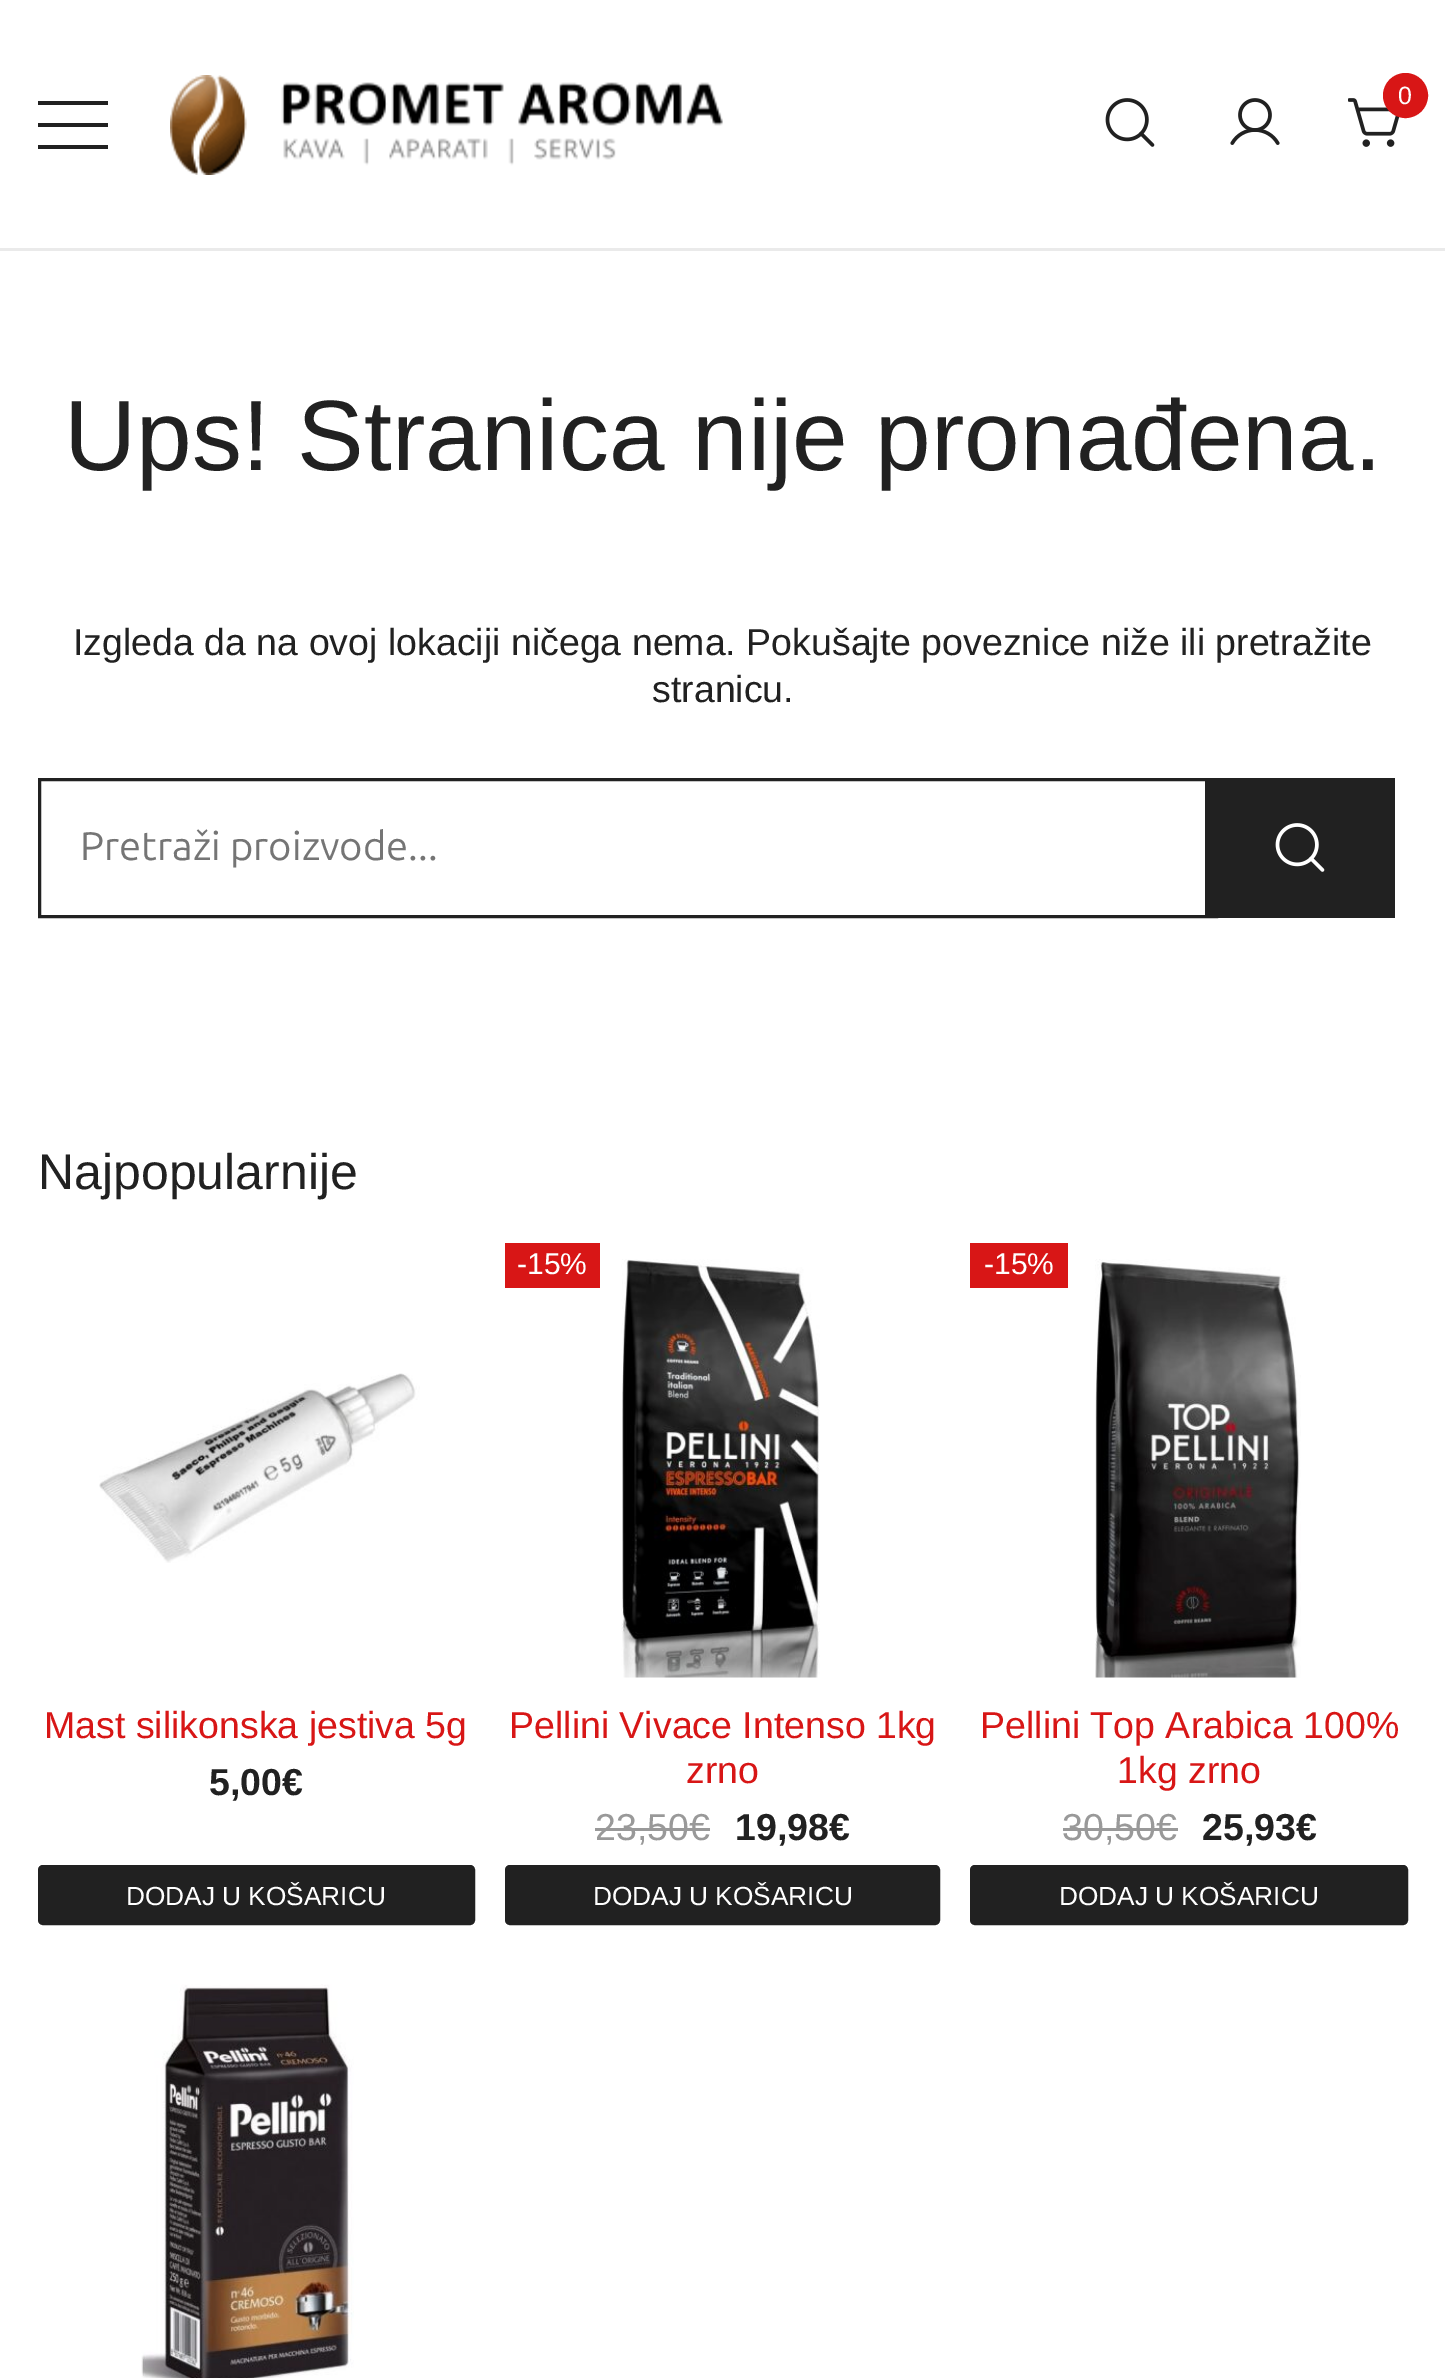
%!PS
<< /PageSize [1445 2378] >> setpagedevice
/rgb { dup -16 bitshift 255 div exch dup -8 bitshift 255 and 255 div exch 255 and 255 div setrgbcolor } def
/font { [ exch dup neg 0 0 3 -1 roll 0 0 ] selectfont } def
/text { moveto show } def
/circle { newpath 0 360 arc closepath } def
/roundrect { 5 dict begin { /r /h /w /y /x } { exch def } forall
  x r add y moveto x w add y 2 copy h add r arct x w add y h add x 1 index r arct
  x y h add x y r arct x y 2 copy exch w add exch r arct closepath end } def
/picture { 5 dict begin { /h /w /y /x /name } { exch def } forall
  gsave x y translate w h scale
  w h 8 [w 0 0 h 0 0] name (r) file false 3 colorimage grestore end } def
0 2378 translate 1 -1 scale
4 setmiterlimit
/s1 { /LiberationSans-Regular 25 font 16#FFFFFF rgb } def
/s2 { /LiberationSans-Regular 100 font 16#212121 rgb } def
/s3 { /LiberationSans-Regular 37.5 font 16#212121 rgb } def
/s4 { /Ubuntu-Regular 40 font 16#757575 rgb } def
/s5 { /LiberationSans-Regular 50 font 16#212121 rgb } def
/s6 { /LiberationSans-Regular 37.5 font 16#D81616 rgb } def
/s7 { /LiberationSans-Bold 37.5 font 16#212121 rgb } def
/s8 { /LiberationSans-Regular 26.25 font 16#FFFFFF rgb } def
/s9 { /LiberationSans-Regular 30 font 16#FFFFFF rgb } def
/s10 { /LiberationSans-Regular 37.5 font 16#999999 rgb } def
16#FFFFFF rgb
0 0 1445 2378 rectfill
16#EAEAEA rgb
0 248 1445 3 rectfill
16#212121 rgb
38 101 70 4 rectfill
38 123 70 4 rectfill
38 145 70 4 rectfill
(pic1.raw) 170 75 553 100 picture
(pic2.raw) 1348 98 52 49 picture
16#D81616 rgb
1405.5 95.5 21 circle gsave fill grestore
3 setlinewidth
stroke
s1
(0) 1398 104 text
(pic3.raw) 1230 98 50 47 picture
(pic4.raw) 1105 98 50 49 picture
s2
(Ups! Stranica nije pronađena.) 64 470 text
s3
(Izgleda da na ovoj lokaciji ničega nema. Pokušajte poveznice niže ili pretražite) 73 655 text
(stranicu.) 652 702 text
39.5 779.5 1177 137 rectstroke
s4
(Pretraži proizvode...) 80 860 text
16#212121 rgb
1205 778 190 140 rectfill
(pic5.raw) 1275 823 50 49 picture
s5
(Najpopularnije) 38 1189 text
(pic6.raw) 99 1373 321 190 picture
s6
(Mast silikonska jestiva 5g) 44 1738 text
s7
(5,00€) 209 1795 text
40.5 1867.5 432 55 2.5 roundrect gsave fill grestore
5 setlinewidth
stroke
s8
(DODAJ U KOŠARICU) 126 1905 text
16#D81616 rgb
505 1243 95 45 rectfill
s9
(-15%) 517 1274 text
(pic7.raw) 621 1259 199 419 picture
s6
(Pellini Vivace Intenso 1kg) 509 1738 text
(zrno) 686 1783 text
s10
(23,50) 595 1840 text
595 1828 95 3 rectfill
690 1828 20 3 rectfill
(€) 689 1840 text
s7
(19,98€) 735 1840 text
507.5 1867.5 430 55 2.5 roundrect gsave fill grestore
stroke
s8
(DODAJ U KOŠARICU) 593 1905 text
16#D81616 rgb
970 1243 98 45 rectfill
s9
(-15%) 984 1274 text
(pic8.raw) 1095 1259 206 419 picture
s6
(Pellini Top Arabica 100%) 980 1738 text
(1kg zrno) 1117 1783 text
s10
(30,50€) 1062 1840 text
1063 1828 115 3 rectfill
s7
(25,93€) 1202 1840 text
972.5 1867.5 433 55 2.5 roundrect gsave fill grestore
stroke
s8
(DODAJ U KOŠARICU) 1059 1905 text
(pic9.raw) 141 1984 213 394 picture
showpage
